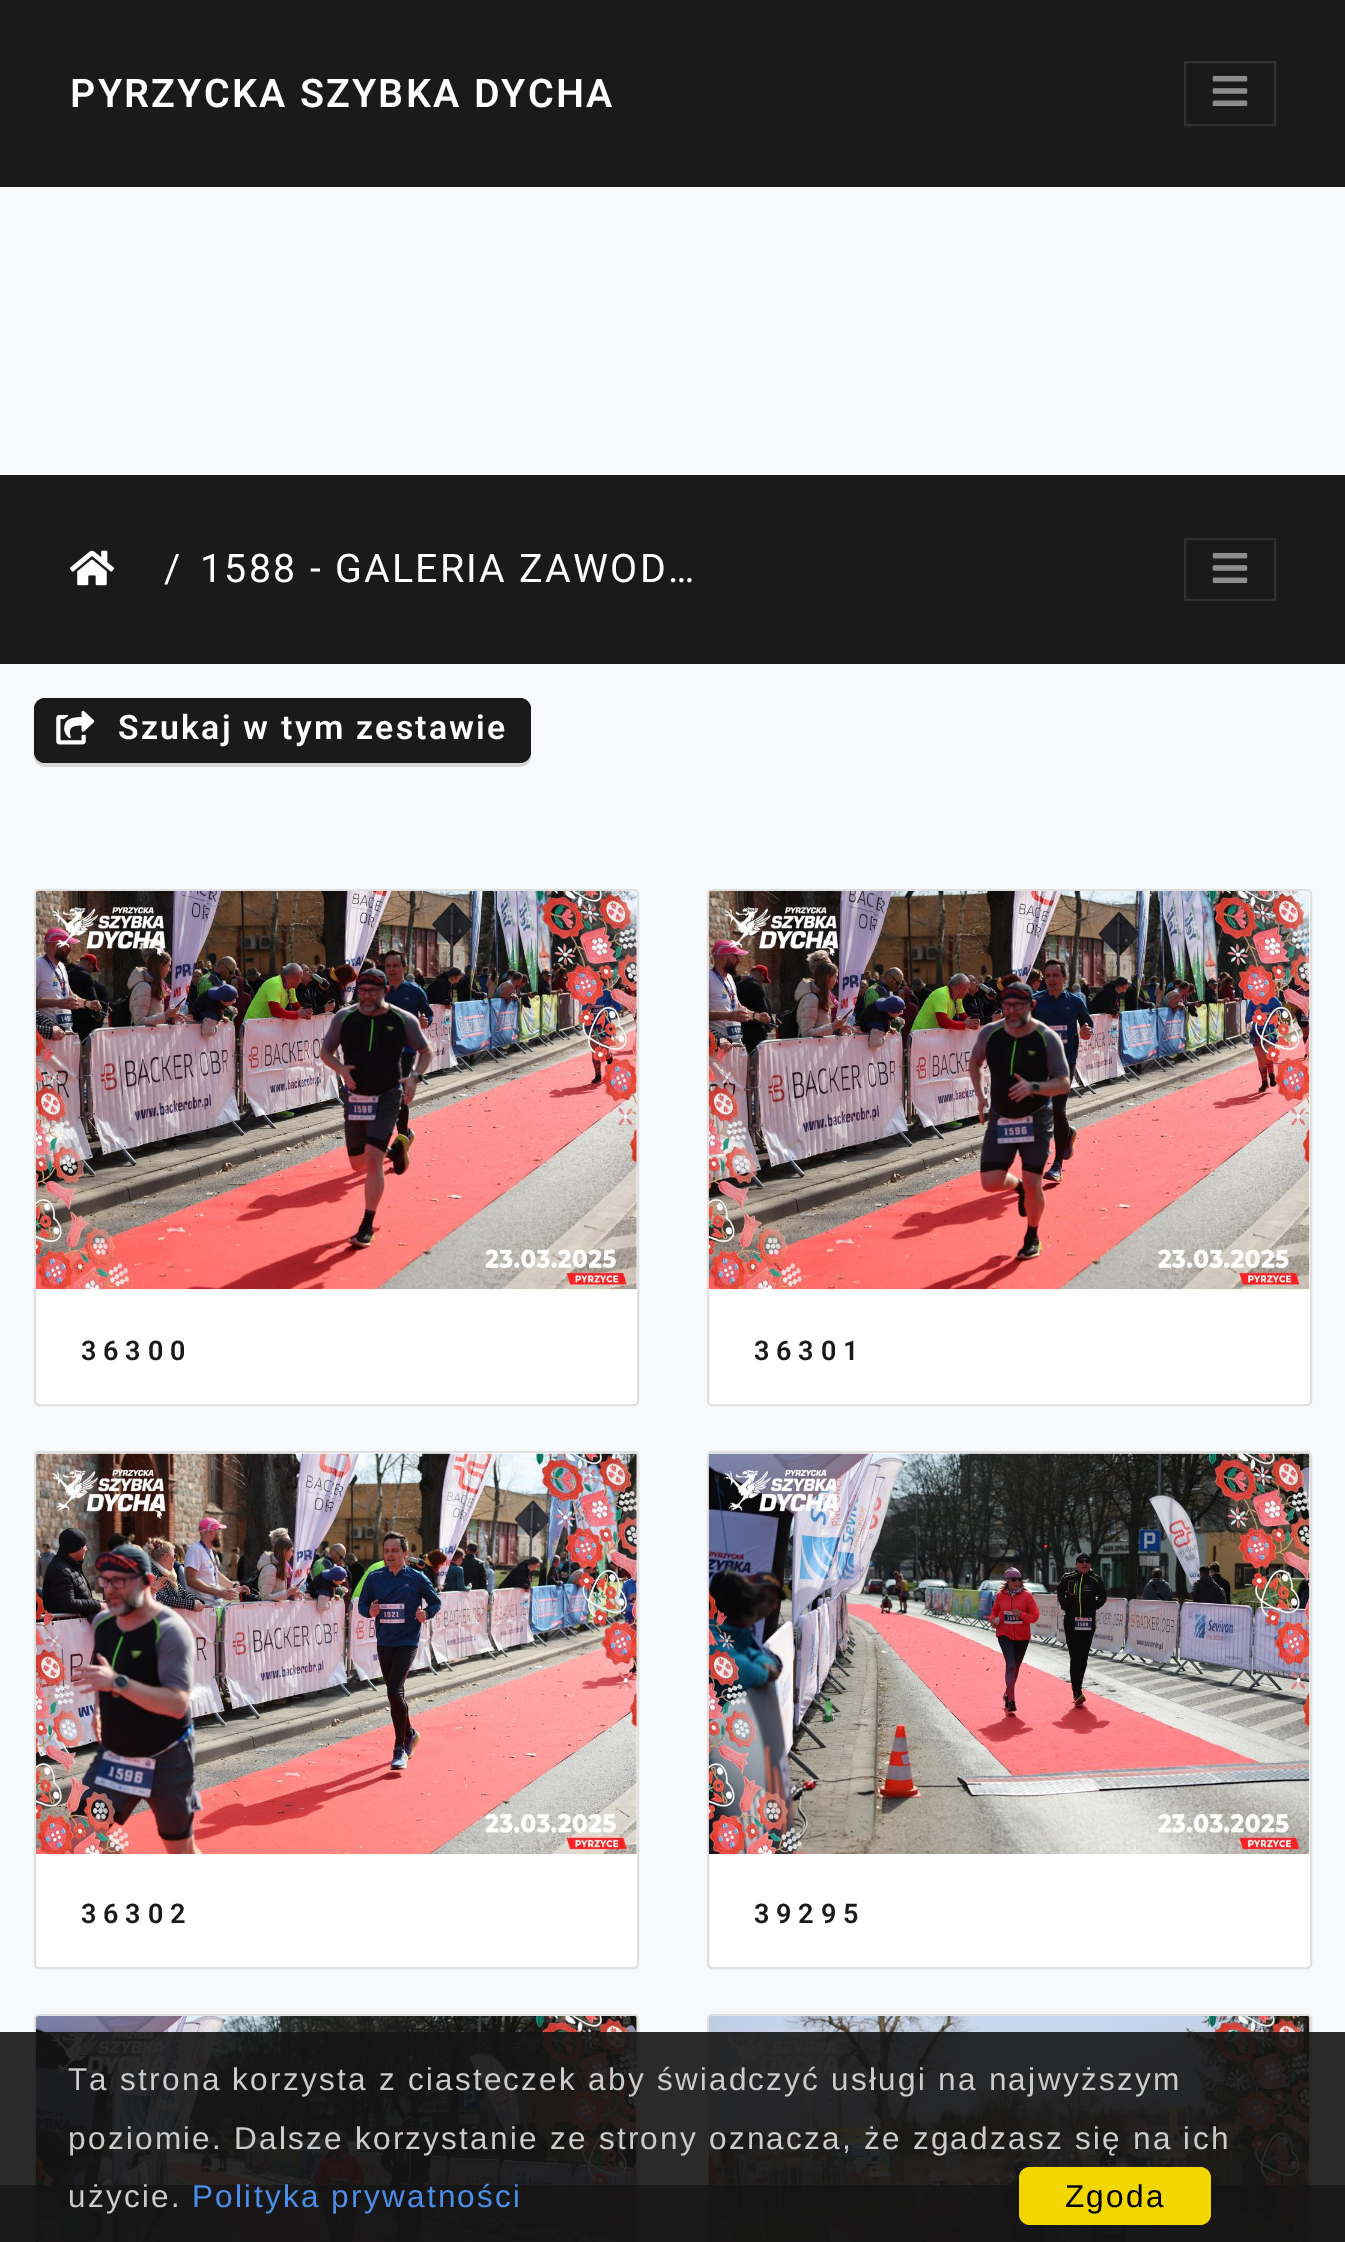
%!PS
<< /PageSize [1345 2242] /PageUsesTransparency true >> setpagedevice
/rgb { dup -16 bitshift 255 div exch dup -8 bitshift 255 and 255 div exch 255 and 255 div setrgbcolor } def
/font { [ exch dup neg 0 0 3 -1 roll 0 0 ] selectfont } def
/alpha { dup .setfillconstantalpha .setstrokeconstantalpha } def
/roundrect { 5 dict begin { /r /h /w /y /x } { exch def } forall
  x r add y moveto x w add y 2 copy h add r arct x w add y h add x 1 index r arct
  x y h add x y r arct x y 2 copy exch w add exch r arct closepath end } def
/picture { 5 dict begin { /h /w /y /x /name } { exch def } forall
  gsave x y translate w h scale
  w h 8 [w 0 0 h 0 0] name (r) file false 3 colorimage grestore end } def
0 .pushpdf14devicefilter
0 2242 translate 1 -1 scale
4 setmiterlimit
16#F8F9FA rgb
0 0 1345 2242 rectfill
16#1A1A1A rgb
0 0 1345 187 rectfill
/Roboto-SemiBold 39.4 font
16#FFFFFF rgb
70 107 moveto 2.25 0 (PYRZYCKA SZYBKA DYCHA) ashow
16#313131 rgb
2 setlinewidth
1185 62 90 63 rectstroke
(pic1.raw) 1212 75 36 32 picture
16#1A1A1A rgb
0 475 1345 189 rectfill
(pic2.raw) 70 550 45 36 picture
/Roboto-Regular 39.4 font
16#FFFFFF rgb
164 582 moveto 2.25 0 (/) ashow
200 582 moveto 2.25 0 (1588 - GALERIA ZAWOD…) ashow
16#313131 rgb
1185 539 90 61 rectstroke
(pic1.raw) 1212 552 36 32 picture
16#D5D6D7 rgb
34 754 moveto 34 756 lineto 34 762 39 767 45 767 curveto 520 767 lineto 526 767 531 762 531 756 curveto 531 752 lineto 531 758 526 763 520 763 curveto 45 763 lineto 40 763 35 759 34 754 curveto closepath fill
16#1A1A1A rgb
34 698 497 65 11 roundrect fill
(pic3.raw) 56 710 39 35 picture
/Roboto-SemiBold 33.75 font
16#FFFFFF rgb
118 739 moveto 2.25 0 (Szukaj w tym zestawie) ashow
34 889 605 517 5 roundrect fill
0.12 alpha
16#000000 rgb
35 890 603 515 4 roundrect stroke
1 alpha
(pic4.raw) 36 891 601 399 picture
/Roboto-SemiBold 27 font
16#1A1A1A rgb
81 1360 moveto 6.75 0 (36300) ashow
16#FFFFFF rgb
707 889 605 517 5 roundrect fill
0.12 alpha
16#000000 rgb
708 890 603 515 4 roundrect stroke
1 alpha
(pic5.raw) 708 891 602 399 picture
16#1A1A1A rgb
754 1360 moveto 6.75 0 (36301) ashow
16#FFFFFF rgb
34 1451 605 518 5 roundrect fill
0.12 alpha
16#000000 rgb
35 1452 603 516 4 roundrect stroke
1 alpha
(pic6.raw) 36 1453 601 401 picture
16#1A1A1A rgb
81 1923 moveto 6.75 0 (36302) ashow
16#FFFFFF rgb
707 1451 605 518 5 roundrect fill
0.12 alpha
16#000000 rgb
708 1452 603 516 4 roundrect stroke
1 alpha
(pic7.raw) 708 1453 602 401 picture
16#1A1A1A rgb
754 1923 moveto 6.75 0 (39295) ashow
16#FFFFFF rgb
34 2014 605 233 5 roundrect fill
0.12 alpha
16#000000 rgb
35 2015 603 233 4 roundrect stroke
1 alpha
(pic8.raw) 36 2016 601 226 picture
16#FFFFFF rgb
707 2014 605 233 5 roundrect fill
0.12 alpha
16#000000 rgb
708 2015 603 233 4 roundrect stroke
1 alpha
(pic9.raw) 708 2016 602 226 picture
0.8 alpha
16#141414 rgb
0 2185 1345 57 rectfill
0.9 alpha
0 2032 1345 210 rectfill
/LiberationSans-Regular 31.5 font
1 alpha
16#CCCCCC rgb
68 2090 moveto 2.25 0 (Ta strona korzysta z ciasteczek aby świadczyć usługi na najwyższym) ashow
68 2149 moveto 2.25 0 (poziomie. Dalsze korzystanie ze strony oznacza, że zgadzasz się na ich) ashow
68 2207 moveto 2.25 0 (użycie.) ashow
16#4B8EE7 rgb
192 2207 moveto 2.25 0 (Polityka prywatności) ashow
16#F1D600 rgb
1019 2167 192 58 11 roundrect fill
16#000000 rgb
1065 2207 moveto 2.25 0 (Zgoda) ashow
.poppdf14devicefilter showpage
